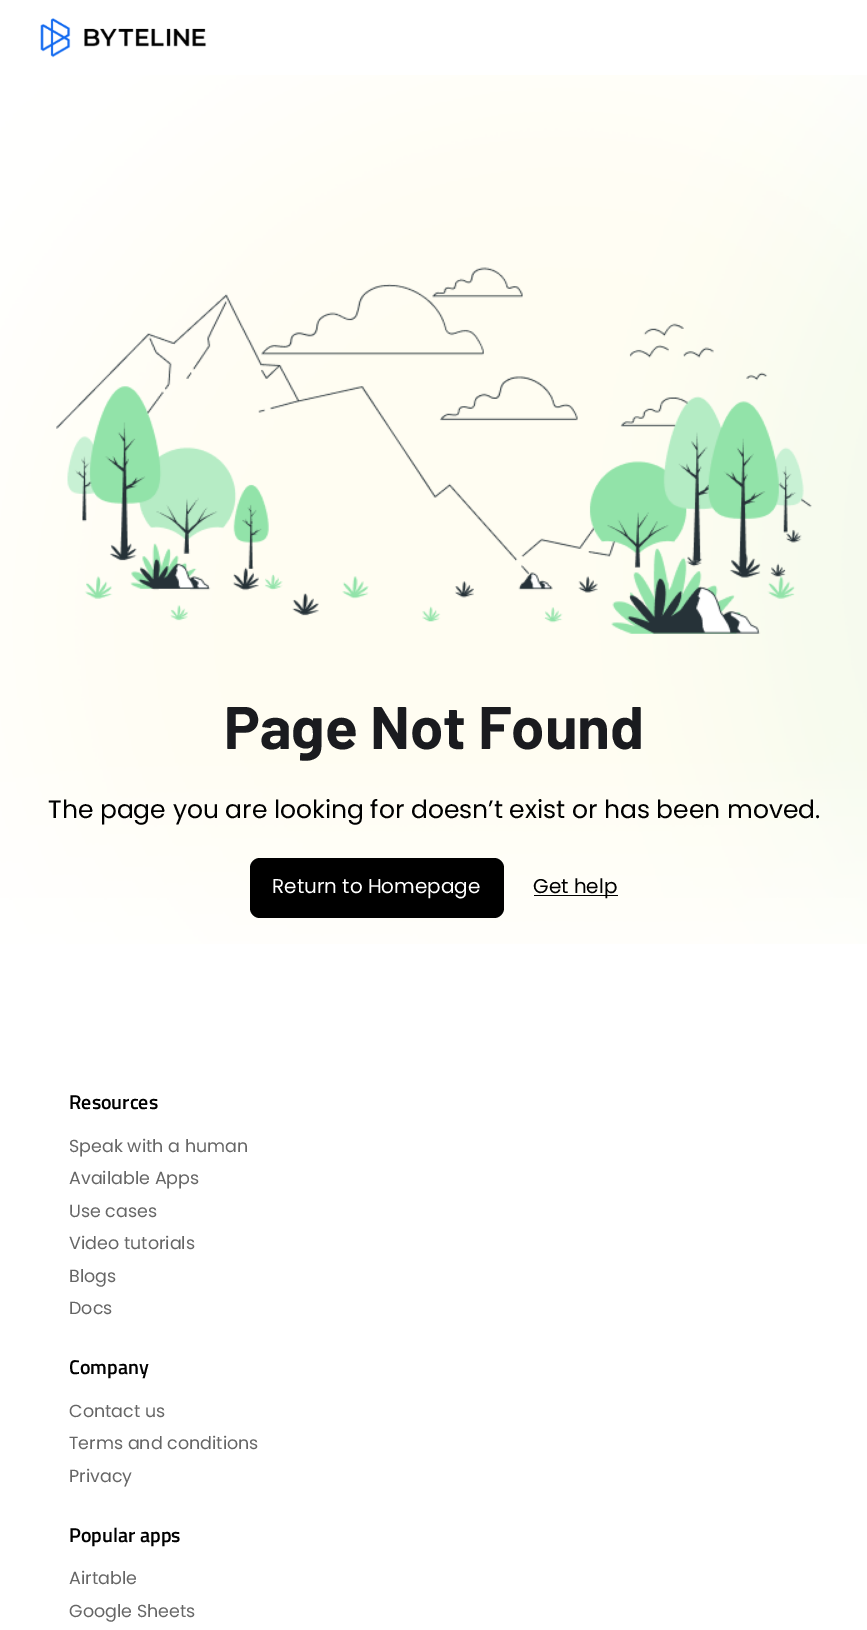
%!PS
<< /PageSize [867 1630] >> setpagedevice
/rgb { dup -16 bitshift 255 div exch dup -8 bitshift 255 and 255 div exch 255 and 255 div setrgbcolor } def
/font { [ exch dup neg 0 0 3 -1 roll 0 0 ] selectfont } def
/text { moveto show } def
/roundrect { 5 dict begin { /r /h /w /y /x } { exch def } forall
  x r add y moveto x w add y 2 copy h add r arct x w add y h add x 1 index r arct
  x y h add x y r arct x y 2 copy exch w add exch r arct closepath end } def
/picture { 5 dict begin { /h /w /y /x /name } { exch def } forall
  gsave x y translate w h scale
  w h 8 [w 0 0 h 0 0] name (r) file false 3 colorimage grestore end } def
0 1630 translate 1 -1 scale
4 setmiterlimit
/s1 { /Barlow-Bold 60 font 16#1A1B1F rgb } def
/s2 { /Poppins-Regular 25 font 16#000000 rgb } def
/s3 { /Poppins-Regular 20 font 16#FFFFFF rgb } def
/s4 { /Poppins-Regular 20 font 16#000000 rgb } def
/s5 { /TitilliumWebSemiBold-SemiBold 20 font 16#000000 rgb } def
/s6 { /Poppins-Regular 17.5 font 16#666666 rgb } def
16#FFFFFF rgb
0 0 867 1630 rectfill
(pic1.raw) 40 18 167 40 picture
(pic2.raw) 0 75 867 869 picture
(pic3.raw) 56 267 756 367 picture
s1
(Page Not Found) 224 749 text
s2
(The page you are looking for doesn’t exist or has been moved.) 48 818 text
250 858 254 60 10 roundrect fill
s3
(Return to Homepage) 272 893 text
16#000000 rgb
534 895 84 1 rectfill
(Get help) 533 893 text
s5
(Resources) 69 1109 text
s6
(Speak with a human) 69 1152 text
(Available Apps) 69 1184 text
(Use cases) 69 1217 text
(Video tutorials) 69 1249 text
(Blogs) 69 1282 text
(Docs) 69 1314 text
s5
(Company) 69 1374 text
s6
(Contact us) 69 1417 text
(Terms and conditions) 69 1449 text
(Privacy) 69 1482 text
s5
(Popular apps) 69 1542 text
s6
(Airtable) 69 1584 text
(Google Sheets) 69 1617 text
showpage
